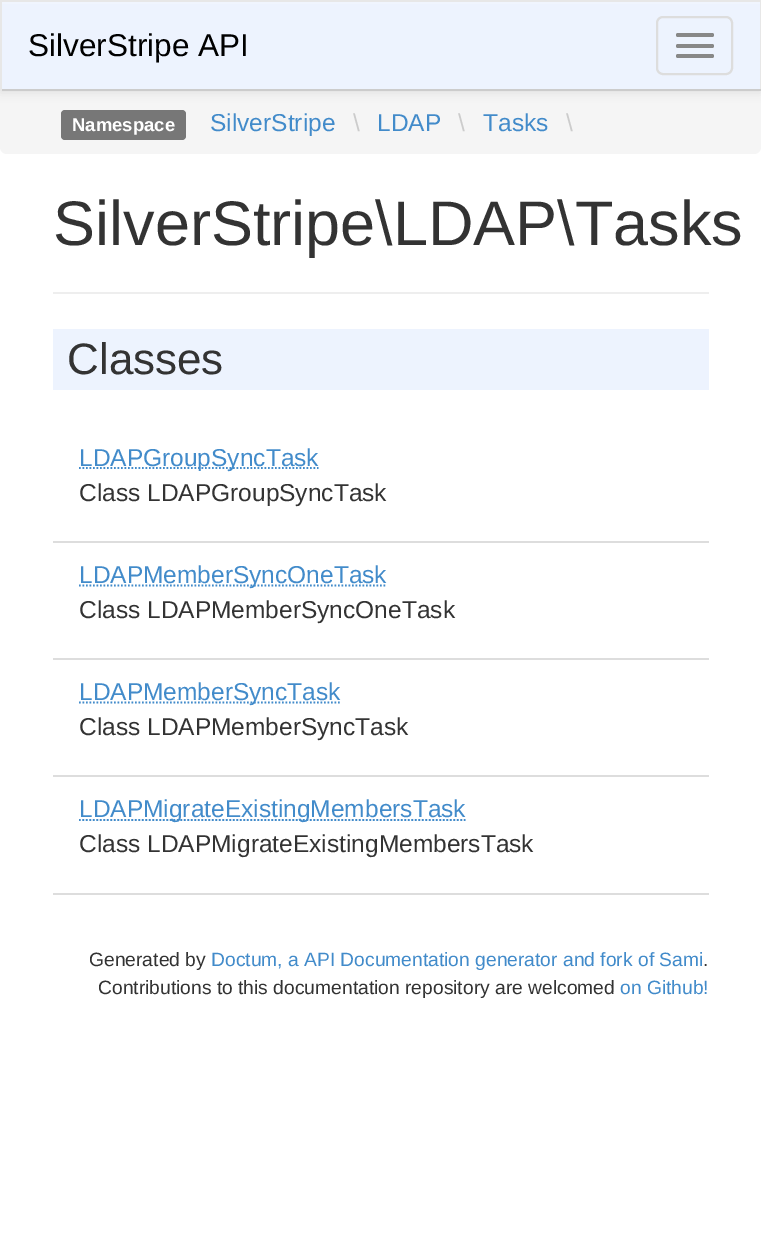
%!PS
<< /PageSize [761 1250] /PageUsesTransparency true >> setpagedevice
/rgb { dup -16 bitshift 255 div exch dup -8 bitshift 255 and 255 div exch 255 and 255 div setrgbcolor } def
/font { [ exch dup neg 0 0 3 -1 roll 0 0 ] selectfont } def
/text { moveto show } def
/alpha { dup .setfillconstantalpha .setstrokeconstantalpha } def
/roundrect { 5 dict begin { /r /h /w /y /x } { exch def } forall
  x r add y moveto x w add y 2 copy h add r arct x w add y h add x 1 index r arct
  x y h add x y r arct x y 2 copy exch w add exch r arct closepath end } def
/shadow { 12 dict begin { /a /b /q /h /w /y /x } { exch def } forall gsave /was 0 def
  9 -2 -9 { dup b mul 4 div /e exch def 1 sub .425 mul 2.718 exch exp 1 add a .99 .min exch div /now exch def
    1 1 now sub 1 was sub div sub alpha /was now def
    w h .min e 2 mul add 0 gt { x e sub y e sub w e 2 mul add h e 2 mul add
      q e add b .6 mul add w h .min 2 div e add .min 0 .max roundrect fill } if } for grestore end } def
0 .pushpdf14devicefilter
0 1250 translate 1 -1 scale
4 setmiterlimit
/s1 { /LiberationSans-Regular 31.5 font 16#000000 rgb } def
/s2 { /LiberationSans-Bold 18.5 font 16#FFFFFF rgb } def
/s3 { /LiberationSans-Regular 24.5 font 16#428BCA rgb } def
/s4 { /LiberationSans-Regular 24.5 font 16#CCCCCC rgb } def
/s5 { /LiberationSans-Regular 63 font 16#333333 rgb } def
/s6 { /LiberationSans-Regular 44 font 16#333333 rgb } def
/s7 { /LiberationSans-Regular 24.5 font 16#333333 rgb } def
/s8 { /LiberationSans-Regular 19.25 font 16#333333 rgb } def
/s9 { /LiberationSans-Regular 19.25 font 16#428BCA rgb } def
16#FFFFFF rgb
0 0 761 1250 rectfill
16#F5F5F5 rgb
0 91 moveto 761 91 lineto 761 147 lineto 761 151 758 154 754 154 curveto 7 154 lineto 3 154 0 151 0 147 curveto closepath fill
16#000000 rgb
0 2 761 91 0 4.5 0.07 shadow
16#EDF3FE rgb
2 4 758 85 rectfill
16#F0F5FE rgb
2 2 758 2 rectfill
16#E7E7E7 rgb
0 0 761 2 rectfill
760 0 1 91 rectfill
16#CCCCCC rgb
0 89 761 2 rectfill
16#E7E7E7 rgb
0 0 2 91 rectfill
s1
(SilverStripe API) 28 56 text
16#DDDDDD rgb
2 setlinewidth
657 17 75 57 6 roundrect stroke
16#888888 rgb
676 33 38 4 2 roundrect fill
676 44 38 4 2 roundrect fill
676 54 38 4 2 roundrect fill
16#777777 rgb
61 110 125 30 4 roundrect fill
s2
(Namespace) 72 131 text
s3
(SilverStripe) 210 131 text
s4
(\\) 353 131 text
s3
(LDAP) 377 131 text
s4
(\\) 458 131 text
s3
(Tasks) 483 131 text
s4
(\\) 566 131 text
16#EEEEEE rgb
53 292 656 2 rectfill
s5
(SilverStripe\\LDAP\\Tasks) 53 245 text
16#EDF3FE rgb
53 329 656 61 rectfill
s6
(Classes) 67 374 text
16#DDDDDD rgb
53 541 656 2 rectfill
16#428BCA rgb
1.8 setlinewidth
[1.75 1.75] 0 setdash
79 468 moveto 318.5 468 lineto stroke
s3
(LDAPGroupSyncTask) 79 466 text
s7
(Class LDAPGroupSyncTask) 79 501 text
16#DDDDDD rgb
53 658 656 2 rectfill
16#428BCA rgb
79 585.5 moveto 386.5 585.5 lineto stroke
(LDAPMemberSyncOneTask) 79 583 text
s7
(Class LDAPMemberSyncOneTask) 79 618 text
16#DDDDDD rgb
53 775 656 2 rectfill
16#428BCA rgb
79 702.5 moveto 340 702.5 lineto stroke
(LDAPMemberSyncTask) 79 700 text
s7
(Class LDAPMemberSyncTask) 79 735 text
16#DDDDDD rgb
53 893 656 2 rectfill
16#428BCA rgb
79 820 moveto 465.5 820 lineto stroke
(LDAPMigrateExistingMembersTask) 79 817 text
s7
(Class LDAPMigrateExistingMembersTask) 79 852 text
s8
(Generated by) 89 966 text
s9
(Doctum, a API Documentation generator and fork of Sami) 211 966 text
s8
(.) 703 966 text
(Contributions to this documentation repository are welcomed) 98 994 text
s9
(on Github!) 620 994 text
.poppdf14devicefilter showpage
